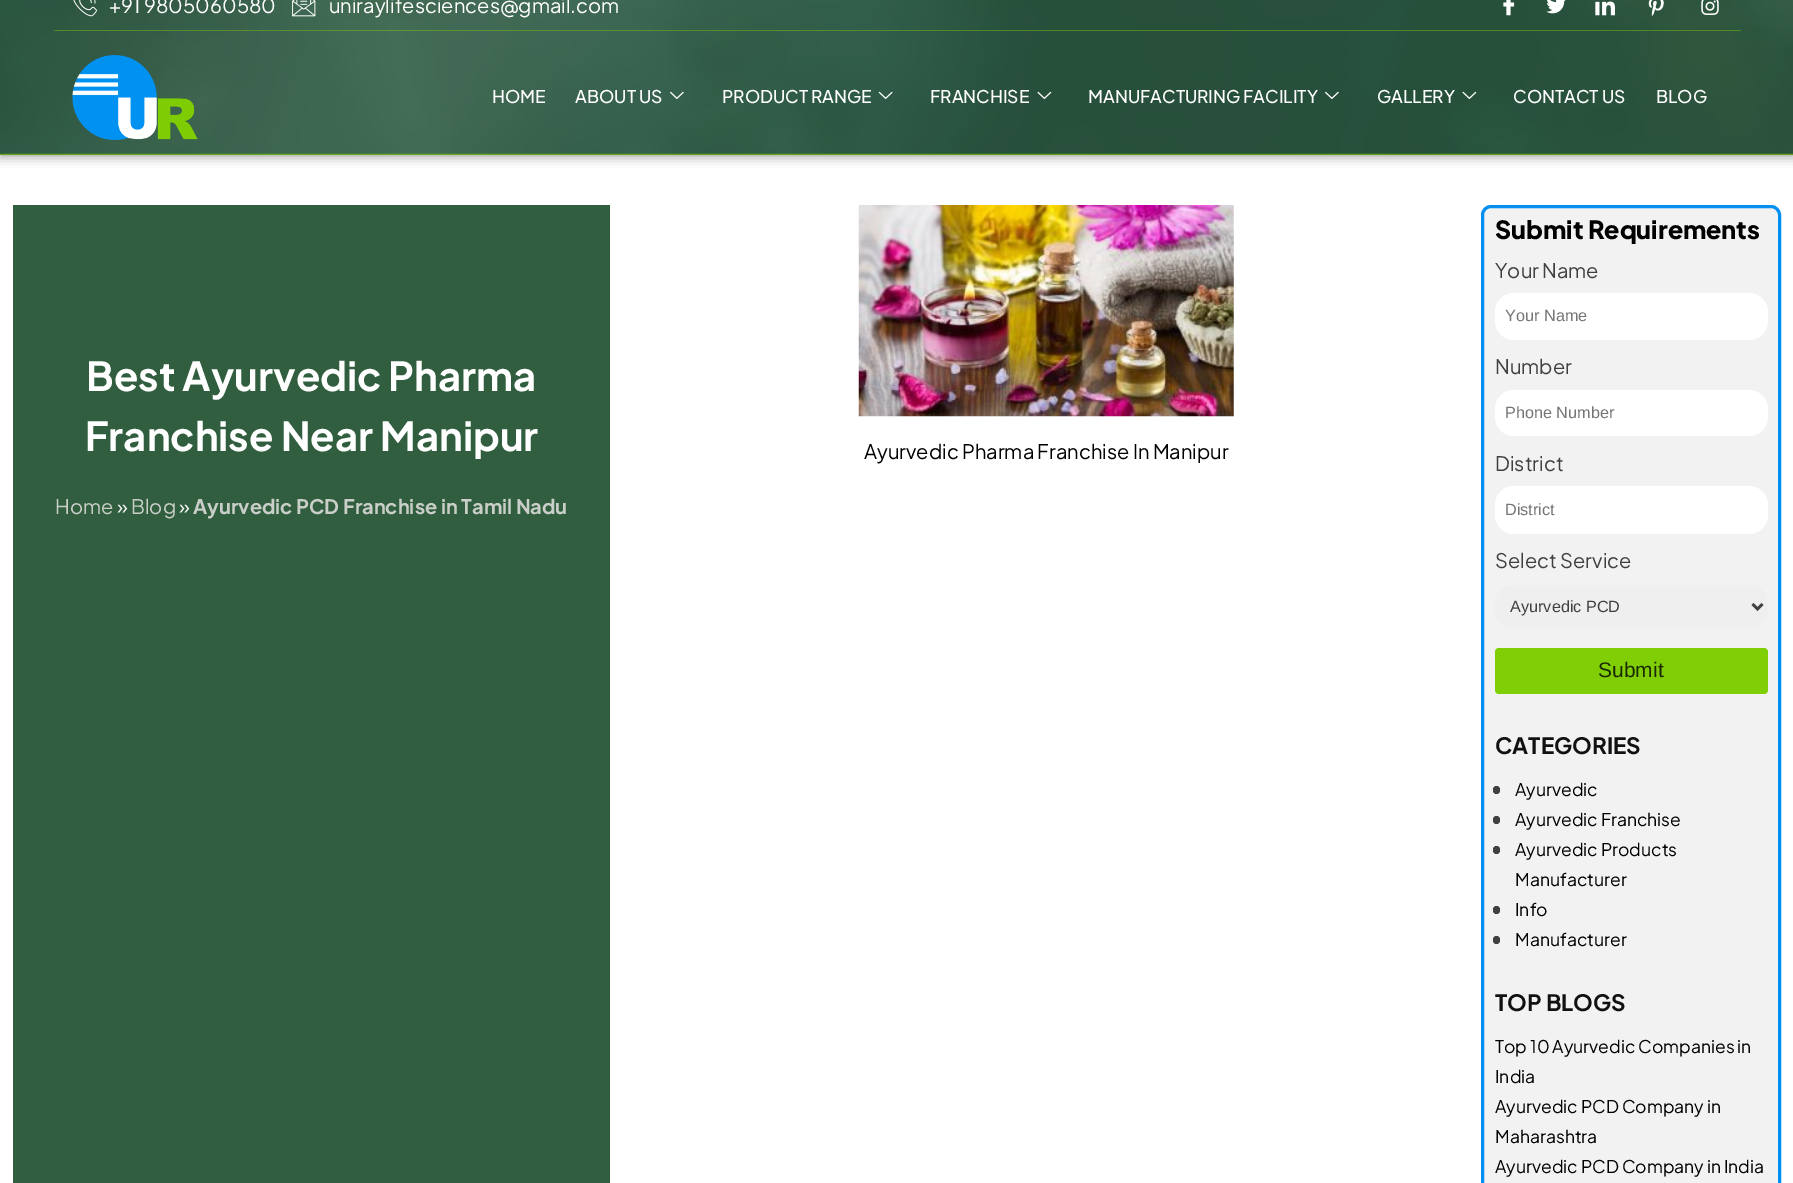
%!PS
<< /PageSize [1793 1183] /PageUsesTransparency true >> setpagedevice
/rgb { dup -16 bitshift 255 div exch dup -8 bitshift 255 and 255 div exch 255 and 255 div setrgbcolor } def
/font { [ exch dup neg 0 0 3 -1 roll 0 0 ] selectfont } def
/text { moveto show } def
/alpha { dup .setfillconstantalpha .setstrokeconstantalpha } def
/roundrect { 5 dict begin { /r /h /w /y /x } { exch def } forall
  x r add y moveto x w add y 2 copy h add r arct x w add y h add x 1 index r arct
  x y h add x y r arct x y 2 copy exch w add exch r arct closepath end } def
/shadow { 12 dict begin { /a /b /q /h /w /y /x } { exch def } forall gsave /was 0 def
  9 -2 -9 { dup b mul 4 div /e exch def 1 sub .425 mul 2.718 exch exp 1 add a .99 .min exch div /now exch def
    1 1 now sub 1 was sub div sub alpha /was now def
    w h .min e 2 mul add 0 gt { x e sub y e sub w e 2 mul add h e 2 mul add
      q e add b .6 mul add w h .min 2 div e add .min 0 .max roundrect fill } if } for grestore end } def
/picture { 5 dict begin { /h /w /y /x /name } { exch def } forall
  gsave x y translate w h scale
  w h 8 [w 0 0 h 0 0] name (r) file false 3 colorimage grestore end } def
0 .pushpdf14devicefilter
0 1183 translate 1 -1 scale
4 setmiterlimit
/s1 { /PlusJakartaSans-Regular 20 font 16#FFFFFF rgb } def
/s2 { /PlusJakartaSans-Medium 17.5 font 16#FFFFFF rgb } def
/s3 { /PlusJakartaSans-Bold 40 font 16#FFFFFF rgb } def
/s4 { /PlusJakartaSans-Regular 20 font 16#C9CEC8 rgb } def
/s5 { /PlusJakartaSans-Bold 20 font 16#C9CEC8 rgb } def
/s6 { /PlusJakartaSans-Regular 20 font 16#000000 rgb } def
/s7 { /PlusJakartaSans-ExtraBold 25 font 16#000000 rgb } def
/s8 { /PlusJakartaSans-Regular 20 font 16#404040 rgb } def
/s9 { /LiberationSans-Regular 16.25 font 16#757575 rgb } def
/s10 { /LiberationSans-Regular 16.25 font 16#404040 rgb } def
/s11 { /LiberationSans-Regular 21 font 16#1A2901 rgb } def
/s12 { /PlusJakartaSans-Bold 22.5 font 16#111111 rgb } def
/s13 { /PlusJakartaSans-Regular 17.5 font 16#000000 rgb } def
16#FFFFFF rgb
0 0 1793 1183 rectfill
16#000000 rgb
0 -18 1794 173 0 6 0.5 shadow
(pic1.raw) 0 0 1793 155 picture
0.43 alpha
16#7ECD02 rgb
54 30 1687 1 rectfill
1 alpha
(pic2.raw) 73 0 24 17 picture
s1
(+91 9805060580) 109 13 text
(pic3.raw) 292 0 24 17 picture
(uniraylifesciences@gmail.com) 329 13 text
(pic4.raw) 1503 0 12 16 picture
(pic5.raw) 1546 0 20 14 picture
(pic6.raw) 1595 0 20 16 picture
(pic7.raw) 1648 0 16 16 picture
(pic8.raw) 1701 0 18 15 picture
0.43 alpha
16#7ECD02 rgb
0 154 1793 1 rectfill
1 alpha
(pic9.raw) 72 55 126 85 picture
s2
(HOME) 492 103 text
(ABOUT US) 575 103 text
(pic10.raw) 670 91 14 8 picture
(PRODUCT RANGE) 722 103 text
(pic11.raw) 878 91 15 8 picture
(FRANCHISE) 930 103 text
(pic12.raw) 1037 91 15 8 picture
(MANUFACTURING FACILITY) 1088 103 text
(pic13.raw) 1325 91 14 8 picture
(GALLERY) 1377 103 text
(pic14.raw) 1462 91 15 8 picture
(CONTACT US) 1513 103 text
(BLOG) 1656 103 text
16#305E3F rgb
13 205 597 978 rectfill
s3
(Best Ayurvedic Pharma) 86 391 text
(Franchise Near Manipur) 85 451 text
s4
(Home) 55 514 text
s1
(») 117 514 text
s4
(Blog) 131 514 text
s1
(») 179 514 text
s5
(Ayurvedic PCD Franchise in Tamil Nadu) 193 514 text
(pic15.raw) 858 205 376 212 picture
s6
(Ayurvedic Pharma Franchise In Manipur) 864 459 text
16#F2F2F2 rgb
1482.5 206.5 297 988 8.5 roundrect gsave fill grestore
16#0190F0 rgb
3 setlinewidth
stroke
s7
(Submit Requirements) 1495 239 text
s8
(Your Name) 1495 278 text
16#FFFFFF rgb
1495 293 273 47 19 roundrect fill
s9
(Your Name) 1505 321 text
s8
(Number) 1495 374 text
16#FFFFFF rgb
1495 390 273 46 19 roundrect fill
s9
(Phone Number) 1505 418 text
s8
(District) 1495 471 text
16#FFFFFF rgb
1495 486 273 48 19 roundrect fill
s9
(District) 1505 515 text
s8
(Select Service) 1495 568 text
16#EFEFEF rgb
1495 585 273 44 19 roundrect fill
16#404040 rgb
2.5 setlinewidth
1752.5 604 moveto 1757.5 609 lineto 1762.5 604 lineto stroke
s10
(Ayurvedic PCD) 1510 612 text
16#80CE05 rgb
1495 648 273 46 4 roundrect fill
s11
(Submit) 1598 677 text
s12
(CATEGORIES) 1495 754 text
16#404040 rgb
1493 786 7 8 3.5 roundrect fill
s13
(Ayurvedic) 1515 796 text
16#404040 rgb
1493 816 7 8 3.5 roundrect fill
s13
(Ayurvedic Franchise) 1515 826 text
16#404040 rgb
1493 846 7 8 3.5 roundrect fill
s13
(Ayurvedic Products) 1515 856 text
(Manufacturer) 1515 886 text
16#404040 rgb
1493 906 7 8 3.5 roundrect fill
s13
(Info) 1515 916 text
16#404040 rgb
1493 936 7 8 3.5 roundrect fill
s13
(Manufacturer) 1515 946 text
s12
(TOP BLOGS) 1495 1011 text
s13
(Top 10 Ayurvedic Companies in) 1495 1053 text
(India) 1495 1083 text
(Ayurvedic PCD Company in) 1495 1113 text
(Maharashtra) 1495 1143 text
(Ayurvedic PCD Company in India) 1495 1173 text
.poppdf14devicefilter showpage
